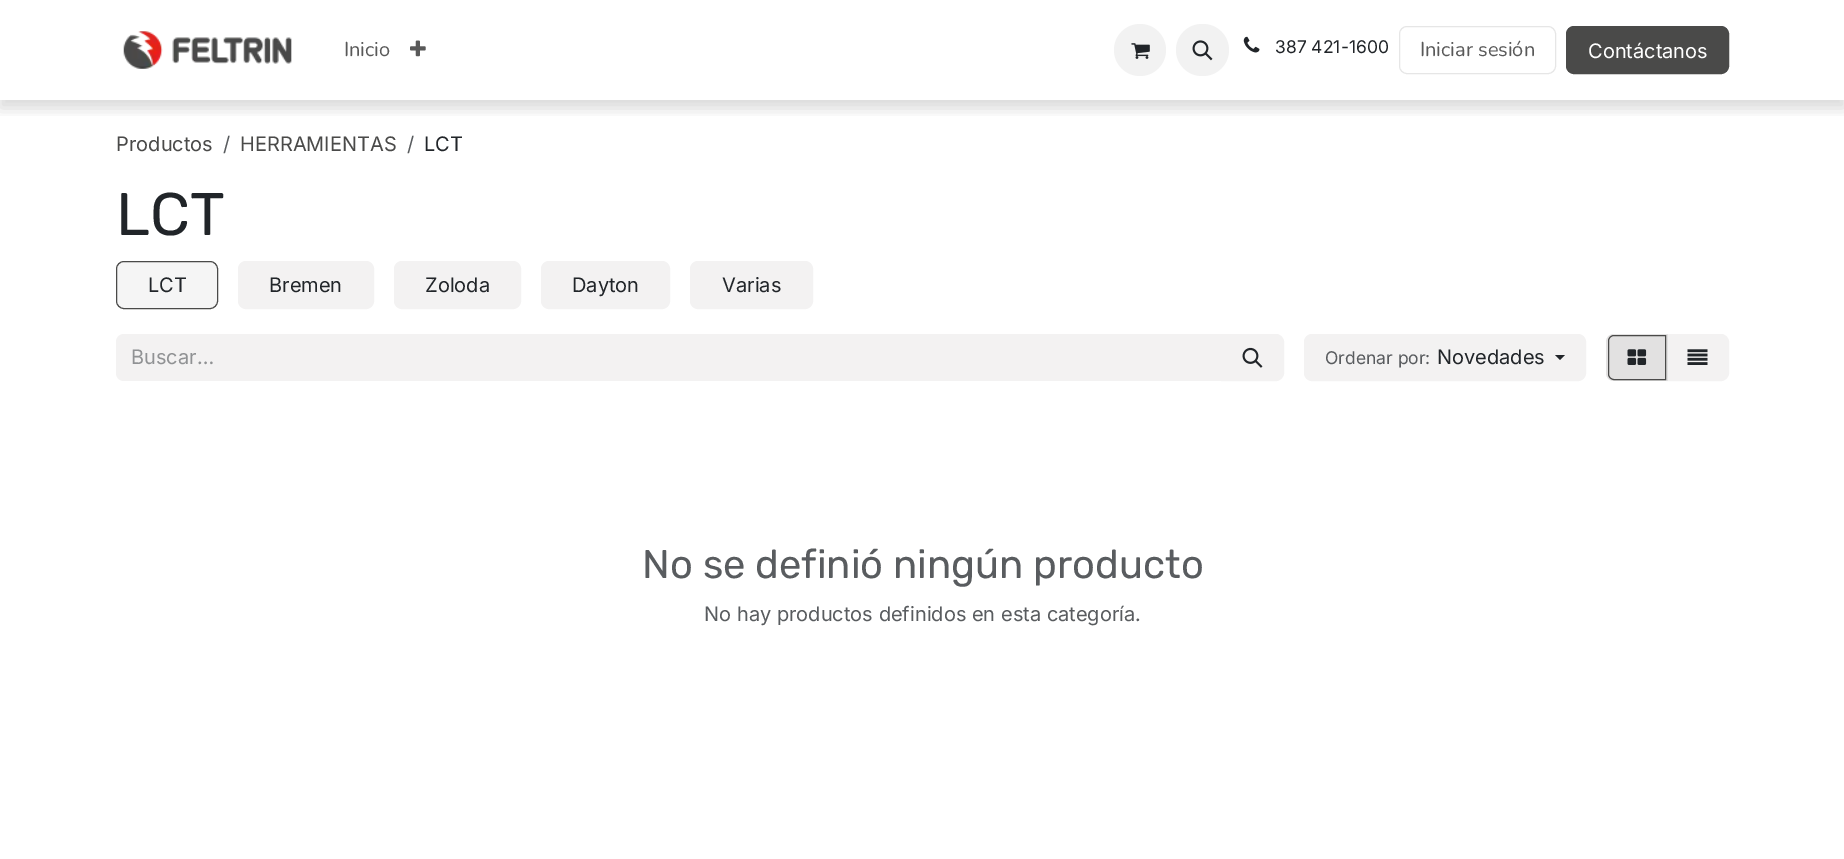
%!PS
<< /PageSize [1844 859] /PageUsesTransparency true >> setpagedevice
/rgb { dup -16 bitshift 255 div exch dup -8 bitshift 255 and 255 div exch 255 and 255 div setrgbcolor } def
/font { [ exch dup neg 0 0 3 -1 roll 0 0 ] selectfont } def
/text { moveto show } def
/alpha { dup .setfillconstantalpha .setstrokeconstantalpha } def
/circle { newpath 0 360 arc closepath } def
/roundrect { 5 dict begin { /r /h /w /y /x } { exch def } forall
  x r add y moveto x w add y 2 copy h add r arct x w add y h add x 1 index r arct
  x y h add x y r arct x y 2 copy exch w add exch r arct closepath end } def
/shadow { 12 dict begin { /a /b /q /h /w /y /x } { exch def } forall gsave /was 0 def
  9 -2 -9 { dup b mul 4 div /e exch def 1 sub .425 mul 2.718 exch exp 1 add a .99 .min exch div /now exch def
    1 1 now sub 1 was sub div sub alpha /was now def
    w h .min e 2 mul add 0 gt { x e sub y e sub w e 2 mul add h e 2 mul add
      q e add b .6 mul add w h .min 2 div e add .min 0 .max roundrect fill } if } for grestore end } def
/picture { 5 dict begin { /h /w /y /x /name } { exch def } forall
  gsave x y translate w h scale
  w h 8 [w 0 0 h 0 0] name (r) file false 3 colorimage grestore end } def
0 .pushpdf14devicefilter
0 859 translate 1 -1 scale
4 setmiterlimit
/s1 { /Nunito-Regular 20 font 16#595959 rgb } def
/s2 { /Inter-Regular 17.5 font 16#212529 rgb } def
/s3 { /Inter-Regular 20 font 16#FFFFFF rgb } def
/s4 { /Inter-Regular 20 font 16#4A4A49 rgb } def
/s5 { /Inter-Regular 20 font 16#595C5F rgb } def
/s6 { /Inter-Regular 20 font 16#212529 rgb } def
/s7 { /Rubik-Regular 60 font 16#212529 rgb } def
/s8 { /Inter-Regular 20 font 16#909294 rgb } def
/s9 { /Inter-Regular 17.5 font 16#595C5F rgb } def
/s10 { /Rubik-Regular 40 font 16#595C5F rgb } def
16#FFFFFF rgb
0 0 1844 859 rectfill
gsave
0 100 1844 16 rectclip
16#000000 rgb
0 8 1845 100 0 7.5 0.15 shadow
grestore
(pic1.raw) 123 31 169 38 picture
s1
(Inicio) 344 56 text
(pic2.raw) 410 40 16 17 picture
16#F2F2F2 rgb
1140 50 26 circle fill
(pic3.raw) 1131 43 19 16 picture
1176 24 53 52 26 roundrect fill
(pic4.raw) 1192 40 21 21 picture
(pic5.raw) 1243 36 17 17 picture
s2
(387 421-1600) 1275 53 text
16#E6E6E6 rgb
1399.5 26.5 156 47 7.5 roundrect stroke
s1
(Iniciar sesión) 1420 56 text
16#4A4A49 rgb
1566.5 26.5 162 47 7.5 roundrect gsave fill grestore
stroke
s3
(Contáctanos) 1588 58 text
s4
(Productos) 116 151 text
s5
(/) 223 151 text
s4
(HERRAMIENTAS) 240 151 text
s5
(/) 407 151 text
s6
(LCT) 424 151 text
s7
(LCT) 116 235 text
16#F5F5F5 rgb
116.5 261.5 101 47 7.5 roundrect gsave fill grestore
16#4A4A49 rgb
stroke
s6
(LCT) 148 292 text
16#F3F2F2 rgb
238.5 261.5 135 47 7.5 roundrect gsave fill grestore
stroke
s6
(Bremen) 269 292 text
16#F3F2F2 rgb
394.5 261.5 126 47 7.5 roundrect gsave fill grestore
stroke
s6
(Zoloda) 425 292 text
16#F3F2F2 rgb
541.5 261.5 128 47 7.5 roundrect gsave fill grestore
stroke
s6
(Dayton) 572 292 text
16#F3F2F2 rgb
690.5 261.5 122 47 7.5 roundrect gsave fill grestore
stroke
s6
(Varias) 722 292 text
16#F3F2F2 rgb
124 334 moveto 1223 334 lineto 1223 381 lineto 124 381 lineto 119.5 381 116 377.5 116 373 curveto 116 342 lineto 116 337.5 119.5 334 124 334 curveto closepath fill
s8
(Buscar…) 131 364 text
16#F3F2F2 rgb
1221.5 334.5 moveto 1276 334.5 lineto 1280 334.5 1283.5 338 1283.5 342 curveto 1283.5 373 lineto 1283.5 377 1280 380.5 1276 380.5 curveto 1221.5 380.5 lineto closepath gsave fill grestore
stroke
(pic6.raw) 1242 347 21 21 picture
1304.5 334.5 281 46 7.5 roundrect gsave fill grestore
stroke
s9
(Ordenar por:) 1325 364 text
s6
(Novedades) 1437 364 text
1555 355 moveto 1565 355 lineto 1560 360 lineto closepath fill
16#F3F2F2 rgb
1666.5 334.5 moveto 1721 334.5 lineto 1725 334.5 1728.5 338 1728.5 342 curveto 1728.5 373 lineto 1728.5 377 1725 380.5 1721 380.5 curveto 1666.5 380.5 lineto closepath gsave fill grestore
stroke
16#E2E1E1 rgb
1614 334 moveto 1668 334 lineto 1668 381 lineto 1614 381 lineto 1609.5 381 1606 377.5 1606 373 curveto 1606 342 lineto 1606 337.5 1609.5 334 1614 334 curveto closepath fill
16#4A4A49 rgb
1614 335.5 moveto 1665.5 335.5 lineto 1665.5 379.5 lineto 1614 379.5 lineto 1611 379.5 1608.5 377 1608.5 374 curveto 1608.5 341 lineto 1608.5 338 1611 335.5 1614 335.5 curveto closepath stroke
(pic7.raw) 1627 349 20 16 picture
(pic8.raw) 1687 349 21 16 picture
s10
(No se definió ningún producto) 642 578 text
s5
(No hay productos definidos en esta categoría.) 704 621 text
.poppdf14devicefilter showpage
